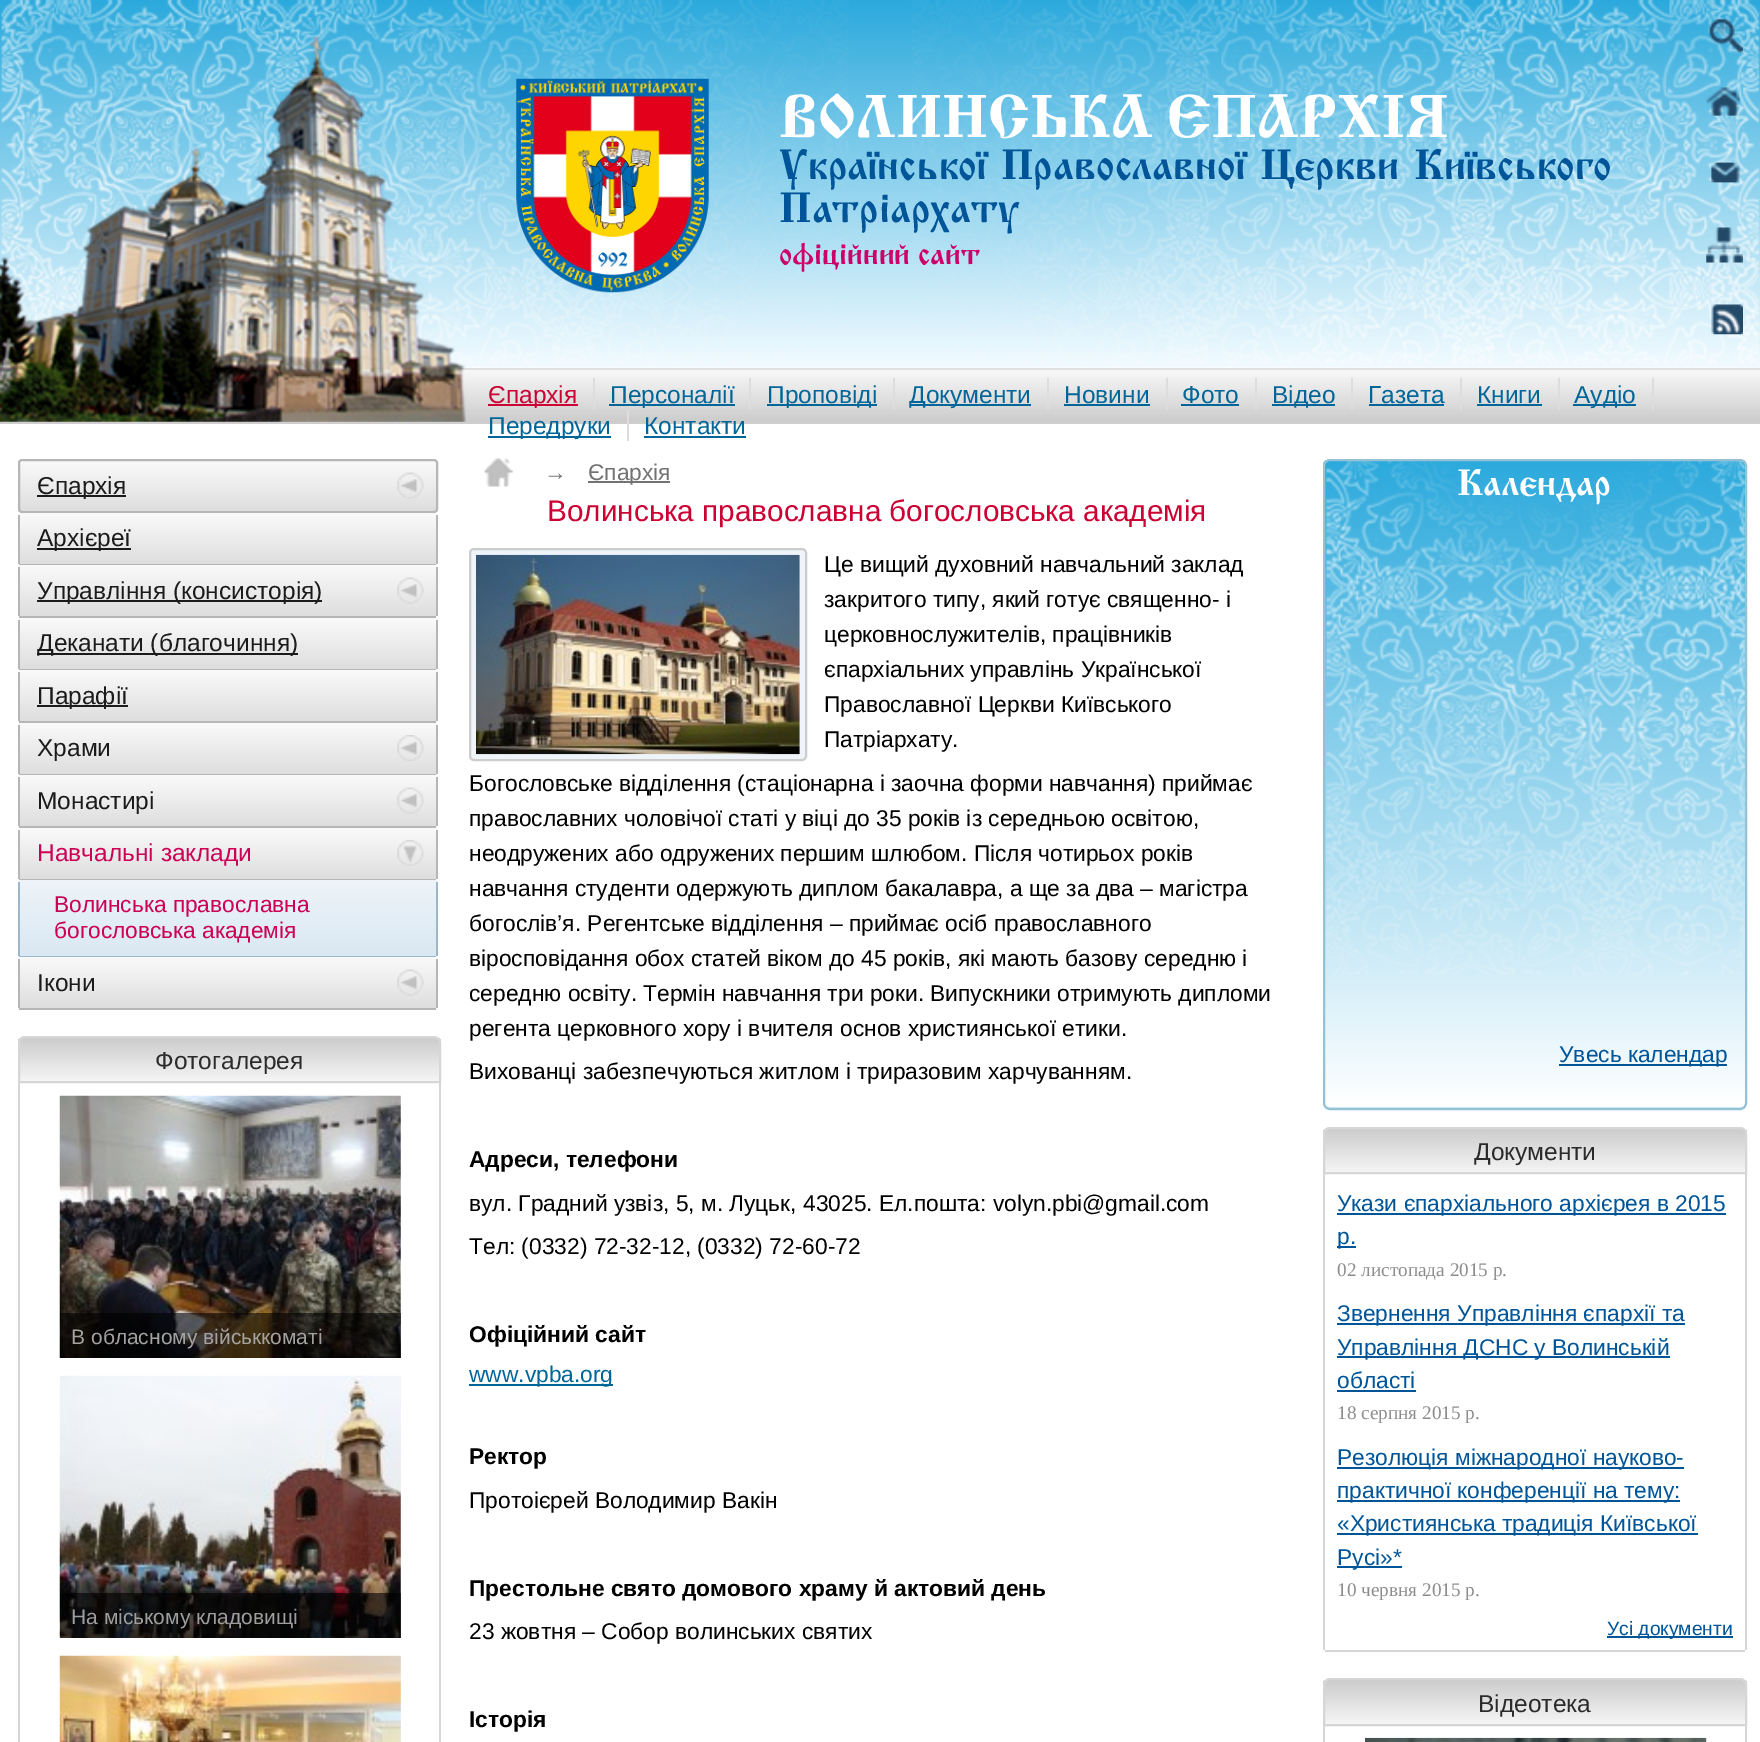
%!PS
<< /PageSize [1760 1742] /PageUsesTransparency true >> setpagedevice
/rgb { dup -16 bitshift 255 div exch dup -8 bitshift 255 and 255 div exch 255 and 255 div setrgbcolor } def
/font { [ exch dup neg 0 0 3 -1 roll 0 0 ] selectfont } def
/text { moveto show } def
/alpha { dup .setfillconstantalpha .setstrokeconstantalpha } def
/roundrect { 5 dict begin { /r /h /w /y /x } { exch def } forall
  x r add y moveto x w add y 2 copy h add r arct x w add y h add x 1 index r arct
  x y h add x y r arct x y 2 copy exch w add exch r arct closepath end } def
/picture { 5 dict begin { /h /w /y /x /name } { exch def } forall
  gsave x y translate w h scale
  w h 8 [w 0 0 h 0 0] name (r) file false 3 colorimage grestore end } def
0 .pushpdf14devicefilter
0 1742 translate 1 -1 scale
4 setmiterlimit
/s1 { /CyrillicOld-Bold 63 font 16#FFFFFF rgb } def
/s2 { /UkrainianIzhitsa-Regular 42 font 16#005599 rgb } def
/s3 { /CyrillicOld-Bold 31.5 font 16#CC0066 rgb } def
/s4 { /LiberationSans-Regular 24.5 font 16#CC0033 rgb } def
/s5 { /LiberationSans-Regular 24.5 font 16#006699 rgb } def
/s6 { /LiberationSans-Regular 24.5 font 16#1B1B1B rgb } def
/s7 { /LiberationSans-Regular 24.5 font 16#CC0055 rgb } def
/s8 { /LiberationSans-Regular 22.75 font 16#CC0055 rgb } def
/s9 { /LiberationSans-Regular 24.5 font 16#2B2B2B rgb } def
/s10 { /LiberationSans-Regular 21 font 16#A4A2A0 rgb } def
/s11 { /LiberationSans-Regular 21 font 16#9E9E9E rgb } def
/s12 { /LiberationSans-Regular 22.75 font 16#737373 rgb } def
/s13 { /LiberationSans-Regular 29.75 font 16#CC0033 rgb } def
/s14 { /LiberationSans-Regular 22.75 font 16#000000 rgb } def
/s15 { /LiberationSans-Bold 22.75 font 16#000000 rgb } def
/s16 { /LiberationSans-Regular 22.75 font 16#006699 rgb } def
/s17 { /CyrillicOld-Bold 38.5 font 16#FFFFFF rgb } def
/s18 { /LiberationSans-Regular 22.75 font 16#005599 rgb } def
/s19 { /LiberationSerif-Regular 19.25 font 16#8C8C8C rgb } def
/s20 { /LiberationSans-Regular 19.25 font 16#005599 rgb } def
16#FFFFFF rgb
0 0 1760 1742 rectfill
(pic1.raw) 0 0 1760 368 picture
(pic2.raw) 1709 18 34 35 picture
(pic3.raw) 516 78 193 215 picture
s1
(ВОЛИНСЬКА ЄПАРХIЯ) 779 137 text
s2
(Української Православної Церкви Київського) 779 179 text
(Патріархату) 779 222 text
s3
(офiцiйний сайт) 779 264 text
(pic4.raw) 1706 87 34 29 picture
(pic5.raw) 1711 162 29 21 picture
(pic6.raw) 1706 227 37 36 picture
(pic7.raw) 1711 304 32 31 picture
gsave 0 370 moveto 1760 370 lineto 1760 422 lineto 0 422 lineto closepath clip newpath
<< /ShadingType 2 /ColorSpace /DeviceRGB /Coords [880 369 880 422] /Extend [true true] /Function << /FunctionType 2 /Domain [0 1] /C0 [0.976 0.976 0.976] /C1 [0.8 0.8 0.8] /N 1 >> >> shfill grestore
16#E0E0E0 rgb
0 368 1760 2 rectfill
16#CFCDCD rgb
0 422 1760 2 rectfill
(pic8.raw) 0 36 466 386 picture
16#DEDCDC rgb
593 378 2 32 rectfill
16#CC0033 rgb
488 404 90 2 rectfill
s4
(Єпархія) 488 403 text
16#DEDCDC rgb
749 378 2 32 rectfill
16#006699 rgb
609 404 126 2 rectfill
(Персоналії) 610 403 text
16#DEDCDC rgb
893 378 2 32 rectfill
16#006699 rgb
767 404 110 2 rectfill
(Проповіді) 767 403 text
16#DEDCDC rgb
1047 378 2 32 rectfill
16#006699 rgb
910 404 121 2 rectfill
(Документи) 909 403 text
16#DEDCDC rgb
1166 378 2 32 rectfill
s5
(Новини) 1064 403 text
1064 404 86 2 rectfill
16#DEDCDC rgb
1255 378 2 32 rectfill
s5
(Фото) 1182 403 text
1181 404 58 2 rectfill
16#DEDCDC rgb
1351 378 2 32 rectfill
16#006699 rgb
1272 404 63 2 rectfill
(Відео) 1272 403 text
16#DEDCDC rgb
1460 378 2 32 rectfill
s5
(Газета) 1368 403 text
1369 404 75 2 rectfill
16#DEDCDC rgb
1558 378 2 32 rectfill
s5
(Книги) 1477 403 text
1477 404 65 2 rectfill
16#DEDCDC rgb
1652 378 2 32 rectfill
16#006699 rgb
1573 404 63 2 rectfill
(Аудіо) 1574 403 text
16#DEDCDC rgb
627 410 2 31 rectfill
16#006699 rgb
488 436 123 2 rectfill
(Передруки) 488 434 text
(Контакти) 644 434 text
644 436 102 2 rectfill
gsave
18 459 420 54 4 roundrect clip newpath
gsave 18 460 moveto 438 460 lineto 438 511 lineto 18 511 lineto closepath clip newpath
<< /ShadingType 2 /ColorSpace /DeviceRGB /Coords [228 460 228 511] /Extend [true true] /Function << /FunctionType 2 /Domain [0 1] /C0 [0.98 0.98 0.98] /C1 [0.871 0.871 0.871] /N 1 >> >> shfill grestore
grestore
16#B6B6B6 rgb
2 setlinewidth
19 460 418 52 3 roundrect stroke
(pic9.raw) 397 472 27 27 picture
16#1B1B1B rgb
37 495 89 2 rectfill
(Єпархія) 37 494 text
gsave
18 513 420 52 4 roundrect clip newpath
gsave 22 513 moveto 434 513 lineto 436 513 438 515 438 517 curveto 438 564 lineto 18 564 lineto 18 517 lineto 18 515 20 513 22 513 curveto closepath clip newpath
<< /ShadingType 2 /ColorSpace /DeviceRGB /Coords [228 513 228 564] /Extend [true true] /Function << /FunctionType 2 /Domain [0 1] /C0 [0.98 0.98 0.98] /C1 [0.871 0.871 0.871] /N 1 >> >> shfill grestore
grestore
16#B6B6B6 rgb
436 515 2 49 rectfill
19 564 417 2 rectfill
18 515 2 49 rectfill
16#1B1B1B rgb
37 548 94 2 rectfill
(Архієреї) 37 546 text
gsave
18 565 420 53 4 roundrect clip newpath
gsave 22 565 moveto 434 565 lineto 436 565 438 567 438 569 curveto 438 616 lineto 18 616 lineto 18 569 lineto 18 567 20 565 22 565 curveto closepath clip newpath
<< /ShadingType 2 /ColorSpace /DeviceRGB /Coords [228 565 228 616] /Extend [true true] /Function << /FunctionType 2 /Domain [0 1] /C0 [0.98 0.98 0.98] /C1 [0.871 0.871 0.871] /N 1 >> >> shfill grestore
gsave 18 616 moveto 438 616 lineto 438 618 lineto 18 618 lineto closepath clip newpath
<< /ShadingType 2 /ColorSpace /DeviceRGB /Coords [228 616 228 667] /Extend [true true] /Function << /FunctionType 2 /Domain [0 1] /C0 [0.98 0.98 0.98] /C1 [0.871 0.871 0.871] /N 1 >> >> shfill grestore
grestore
16#B6B6B6 rgb
436 567 2 49 rectfill
19 616 417 2 rectfill
18 567 2 49 rectfill
(pic9.raw) 397 577 27 27 picture
16#1B1B1B rgb
37 600 285 2 rectfill
(Управління \(консисторія\)) 37 599 text
gsave
18 618 420 52 4 roundrect clip newpath
gsave 22 618 moveto 434 618 lineto 436 618 438 620 438 622 curveto 438 669 lineto 18 669 lineto 18 622 lineto 18 620 20 618 22 618 curveto closepath clip newpath
<< /ShadingType 2 /ColorSpace /DeviceRGB /Coords [228 618 228 669] /Extend [true true] /Function << /FunctionType 2 /Domain [0 1] /C0 [0.98 0.98 0.98] /C1 [0.871 0.871 0.871] /N 1 >> >> shfill grestore
grestore
16#B6B6B6 rgb
436 620 2 49 rectfill
19 669 417 2 rectfill
18 620 2 49 rectfill
16#1B1B1B rgb
37 653 261 2 rectfill
(Деканати \(благочиння\)) 37 651 text
gsave
18 670 420 53 4 roundrect clip newpath
gsave 22 670 moveto 434 670 lineto 436 670 438 672 438 674 curveto 438 721 lineto 18 721 lineto 18 674 lineto 18 672 20 670 22 670 curveto closepath clip newpath
<< /ShadingType 2 /ColorSpace /DeviceRGB /Coords [228 670 228 721] /Extend [true true] /Function << /FunctionType 2 /Domain [0 1] /C0 [0.98 0.98 0.98] /C1 [0.871 0.871 0.871] /N 1 >> >> shfill grestore
gsave 18 721 moveto 438 721 lineto 438 723 lineto 18 723 lineto closepath clip newpath
<< /ShadingType 2 /ColorSpace /DeviceRGB /Coords [228 721 228 772] /Extend [true true] /Function << /FunctionType 2 /Domain [0 1] /C0 [0.98 0.98 0.98] /C1 [0.871 0.871 0.871] /N 1 >> >> shfill grestore
grestore
16#B6B6B6 rgb
436 672 2 49 rectfill
19 721 417 2 rectfill
18 672 2 49 rectfill
16#1B1B1B rgb
37 705 91 2 rectfill
(Парафії) 37 704 text
gsave
18 723 420 52 4 roundrect clip newpath
gsave 22 723 moveto 434 723 lineto 436 723 438 725 438 727 curveto 438 774 lineto 18 774 lineto 18 727 lineto 18 725 20 723 22 723 curveto closepath clip newpath
<< /ShadingType 2 /ColorSpace /DeviceRGB /Coords [228 723 228 774] /Extend [true true] /Function << /FunctionType 2 /Domain [0 1] /C0 [0.98 0.98 0.98] /C1 [0.871 0.871 0.871] /N 1 >> >> shfill grestore
grestore
16#B6B6B6 rgb
436 725 2 49 rectfill
19 774 417 2 rectfill
18 725 2 49 rectfill
(pic10.raw) 397 735 27 26 picture
s6
(Храми) 37 756 text
gsave
18 775 420 53 4 roundrect clip newpath
gsave 22 775 moveto 434 775 lineto 436 775 438 777 438 779 curveto 438 826 lineto 18 826 lineto 18 779 lineto 18 777 20 775 22 775 curveto closepath clip newpath
<< /ShadingType 2 /ColorSpace /DeviceRGB /Coords [228 775 228 826] /Extend [true true] /Function << /FunctionType 2 /Domain [0 1] /C0 [0.98 0.98 0.98] /C1 [0.871 0.871 0.871] /N 1 >> >> shfill grestore
gsave 18 826 moveto 438 826 lineto 438 828 lineto 18 828 lineto closepath clip newpath
<< /ShadingType 2 /ColorSpace /DeviceRGB /Coords [228 826 228 877] /Extend [true true] /Function << /FunctionType 2 /Domain [0 1] /C0 [0.98 0.98 0.98] /C1 [0.871 0.871 0.871] /N 1 >> >> shfill grestore
grestore
16#B6B6B6 rgb
436 777 2 49 rectfill
19 826 417 2 rectfill
18 777 2 49 rectfill
(pic9.raw) 397 787 27 27 picture
s6
(Монастирі) 37 809 text
gsave
18 828 420 52 4 roundrect clip newpath
gsave 22 828 moveto 434 828 lineto 436 828 438 830 438 832 curveto 438 879 lineto 18 879 lineto 18 832 lineto 18 830 20 828 22 828 curveto closepath clip newpath
<< /ShadingType 2 /ColorSpace /DeviceRGB /Coords [228 828 228 879] /Extend [true true] /Function << /FunctionType 2 /Domain [0 1] /C0 [0.98 0.98 0.98] /C1 [0.871 0.871 0.871] /N 1 >> >> shfill grestore
grestore
16#B6B6B6 rgb
436 830 2 49 rectfill
19 879 417 2 rectfill
18 830 2 49 rectfill
(pic11.raw) 397 840 27 26 picture
s7
(Навчальні заклади) 37 861 text
gsave
18 880 420 77 4 roundrect clip newpath
gsave 22 880 moveto 434 880 lineto 436 880 438 882 438 884 curveto 438 956 lineto 18 956 lineto 18 884 lineto 18 882 20 880 22 880 curveto closepath clip newpath
<< /ShadingType 2 /ColorSpace /DeviceRGB /Coords [228 880 228 956] /Extend [true true] /Function << /FunctionType 2 /Domain [0 1] /C0 [0.933 0.957 0.976] /C1 [0.855 0.91 0.953] /N 1 >> >> shfill grestore
grestore
16#9CB6CA rgb
436 882 2 74 rectfill
19 956 417 2 rectfill
18 882 2 74 rectfill
s8
(Волинська православна) 54 912 text
(богословська академія) 54 938 text
gsave
18 957 420 53 4 roundrect clip newpath
gsave 22 957 moveto 434 957 lineto 436 957 438 959 438 961 curveto 438 1008 lineto 18 1008 lineto 18 961 lineto 18 959 20 957 22 957 curveto closepath clip newpath
<< /ShadingType 2 /ColorSpace /DeviceRGB /Coords [228 957 228 1008] /Extend [true true] /Function << /FunctionType 2 /Domain [0 1] /C0 [0.98 0.98 0.98] /C1 [0.871 0.871 0.871] /N 1 >> >> shfill grestore
gsave 18 1008 moveto 438 1008 lineto 438 1010 lineto 18 1010 lineto closepath clip newpath
<< /ShadingType 2 /ColorSpace /DeviceRGB /Coords [228 1008 228 1059] /Extend [true true] /Function << /FunctionType 2 /Domain [0 1] /C0 [0.98 0.98 0.98] /C1 [0.871 0.871 0.871] /N 1 >> >> shfill grestore
grestore
16#B6B6B6 rgb
436 959 2 49 rectfill
19 1008 417 2 rectfill
18 959 2 49 rectfill
(pic9.raw) 397 969 27 27 picture
s6
(Ікони) 37 991 text
gsave
25 1036 moveto 434 1036 lineto 438 1036 441 1039 441 1043 curveto 441 1083 lineto 18 1083 lineto 18 1043 lineto 18 1039 21 1036 25 1036 curveto closepath clip newpath
gsave 18 1038 moveto 441 1038 lineto 441 1081 lineto 18 1081 lineto closepath clip newpath
<< /ShadingType 2 /ColorSpace /DeviceRGB /Coords [229 1038 229 1082] /Extend [true true] /Function << /FunctionType 2 /Domain [0 1] /C0 [0.8 0.8 0.8] /C1 [0.965 0.965 0.965] /N 1 >> >> shfill grestore
grestore
16#D6D6D6 rgb
25 1037 moveto 434 1037 lineto 437.5 1037 440 1039.5 440 1043 curveto 440 1082 lineto 19 1082 lineto 19 1043 lineto 19 1039.5 21.5 1037 25 1037 curveto closepath stroke
s9
(Фотогалерея) 155 1069 text
16#D6D6D6 rgb
439 1083 2 659 rectfill
18 1083 2 659 rectfill
(pic12.raw) 59 1095 342 263 picture
0.6 alpha
16#000000 rgb
60 1313 341 45 rectfill
1 alpha
s10
(В обласному військкоматі) 71 1344 text
(pic13.raw) 59 1375 342 263 picture
0.6 alpha
16#000000 rgb
60 1593 341 45 rectfill
1 alpha
s11
(На міському кладовищі) 71 1624 text
(pic14.raw) 59 1655 342 87 picture
(pic15.raw) 484 458 29 29 picture
s12
(→) 544 480 text
588 481 82 2 rectfill
(Єпархія) 588 480 text
s13
(Волинська православна богословська академія) 547 521 text
16#EEF4F9 rgb
470 549 336 211 4 roundrect gsave fill grestore
16#CCCCCC rgb
stroke
(pic16.raw) 476 554 324 201 picture
s14
(Це вищий духовний навчальний заклад) 824 572 text
(закритого типу, який готує священно- і) 824 607 text
(церковнослужителів, працівників) 824 642 text
(єпархіальних управлінь Української) 824 677 text
(Православної Церкви Київського) 824 712 text
(Патріархату.) 824 747 text
(Богословське відділення \(стаціонарна і заочна форми навчання\) приймає) 469 791 text
(православних чоловічої статі у віці до 35 років із середньою освітою,) 469 826 text
(неодружених або одружених першим шлюбом. Після чотирьох років) 469 861 text
(навчання студенти одержують диплом бакалавра, а ще за два – магістра) 469 896 text
(богослів’я. Регентське відділення – приймає осіб православного) 469 931 text
(віросповідання обох статей віком до 45 років, які мають базову середню і) 469 966 text
(середню освіту. Термін навчання три роки. Випускники отримують дипломи) 469 1001 text
(регента церковного хору і вчителя основ християнської етики.) 469 1036 text
(Вихованці забезпечуються житлом і триразовим харчуванням.) 469 1079 text
s15
(Адреси, телефони) 469 1167 text
s14
(вул. Градний узвіз, 5, м. Луцьк, 43025. Ел.пошта: volyn.pbi@gmail.com) 469 1211 text
(Тел: \(0332\) 72-32-12, \(0332\) 72-60-72) 469 1254 text
s15
(Офіційний сайт) 469 1342 text
16#006699 rgb
469 1384 144 2 rectfill
s16
(www.vpba.org) 469 1382 text
s15
(Ректор) 469 1464 text
s14
(Протоієрей Володимир Вакін) 469 1508 text
s15
(Престольне свято домового храму й актовий день) 469 1596 text
s14
(23 жовтня – Собор волинських святих) 469 1639 text
s15
(Історія) 469 1727 text
(pic17.raw) 1323 460 424 650 picture
16#94C2D4 rgb
1324 460 422 649 6 roundrect stroke
s17
(Календар) 1457 495 text
16#005599 rgb
1559 1064 168 2 rectfill
s18
(Увесь календар) 1559 1062 text
gsave
1330 1127 moveto 1740 1127 lineto 1744 1127 1747 1130 1747 1134 curveto 1747 1174 lineto 1323 1174 lineto 1323 1134 lineto 1323 1130 1326 1127 1330 1127 curveto closepath clip newpath
gsave 1323 1129 moveto 1747 1129 lineto 1747 1172 lineto 1323 1172 lineto closepath clip newpath
<< /ShadingType 2 /ColorSpace /DeviceRGB /Coords [1535 1129 1535 1173] /Extend [true true] /Function << /FunctionType 2 /Domain [0 1] /C0 [0.8 0.8 0.8] /C1 [0.965 0.965 0.965] /N 1 >> >> shfill grestore
grestore
16#D6D6D6 rgb
1330 1128 moveto 1740 1128 lineto 1743.5 1128 1746 1130.5 1746 1134 curveto 1746 1173 lineto 1324 1173 lineto 1324 1134 lineto 1324 1130.5 1326.5 1128 1330 1128 curveto closepath stroke
s9
(Документи) 1474 1160 text
16#D6D6D6 rgb
1745 1174 2 476 rectfill
1325 1650 420 2 rectfill
1323 1174 2 476 rectfill
16#005599 rgb
1337 1213 389 2 rectfill
s18
(Укази єпархіального архієрея в 2015) 1337 1211 text
1337 1246 19 2 rectfill
(р.) 1337 1244 text
s19
(02 листопада 2015 р.) 1337 1276 text
16#005599 rgb
1337 1323 348 2 rectfill
s18
(Звернення Управління єпархії та) 1337 1321 text
1337 1356 333 2 rectfill
(Управління ДСНС у Волинській) 1337 1355 text
(області) 1337 1388 text
1337 1390 79 2 rectfill
s19
(18 серпня 2015 р.) 1337 1419 text
16#005599 rgb
1337 1467 347 2 rectfill
s18
(Резолюція міжнародної науково-) 1337 1465 text
1337 1500 343 2 rectfill
(практичної конференції на тему:) 1337 1498 text
1337 1533 361 2 rectfill
(«Християнська традиція Київської) 1337 1531 text
1337 1566 65 2 rectfill
(Русі»*) 1337 1565 text
s19
(10 червня 2015 р.) 1337 1596 text
16#005599 rgb
1607 1636 126 2 rectfill
s20
(Усі документи) 1607 1635 text
gsave
1330 1678 moveto 1740 1678 lineto 1744 1678 1747 1681 1747 1685 curveto 1747 1726 lineto 1323 1726 lineto 1323 1685 lineto 1323 1681 1326 1678 1330 1678 curveto closepath clip newpath
gsave 1323 1680 moveto 1747 1680 lineto 1747 1724 lineto 1323 1724 lineto closepath clip newpath
<< /ShadingType 2 /ColorSpace /DeviceRGB /Coords [1535 1680 1535 1724] /Extend [true true] /Function << /FunctionType 2 /Domain [0 1] /C0 [0.8 0.8 0.8] /C1 [0.965 0.965 0.965] /N 1 >> >> shfill grestore
grestore
16#D6D6D6 rgb
1330 1679 moveto 1740 1679 lineto 1743.5 1679 1746 1681.5 1746 1685 curveto 1746 1725 lineto 1324 1725 lineto 1324 1685 lineto 1324 1681.5 1326.5 1679 1330 1679 curveto closepath stroke
s9
(Відеотека) 1478 1712 text
16#D6D6D6 rgb
1745 1726 2 16 rectfill
1323 1726 2 16 rectfill
(pic18.raw) 1365 1737 342 5 picture
.poppdf14devicefilter showpage
